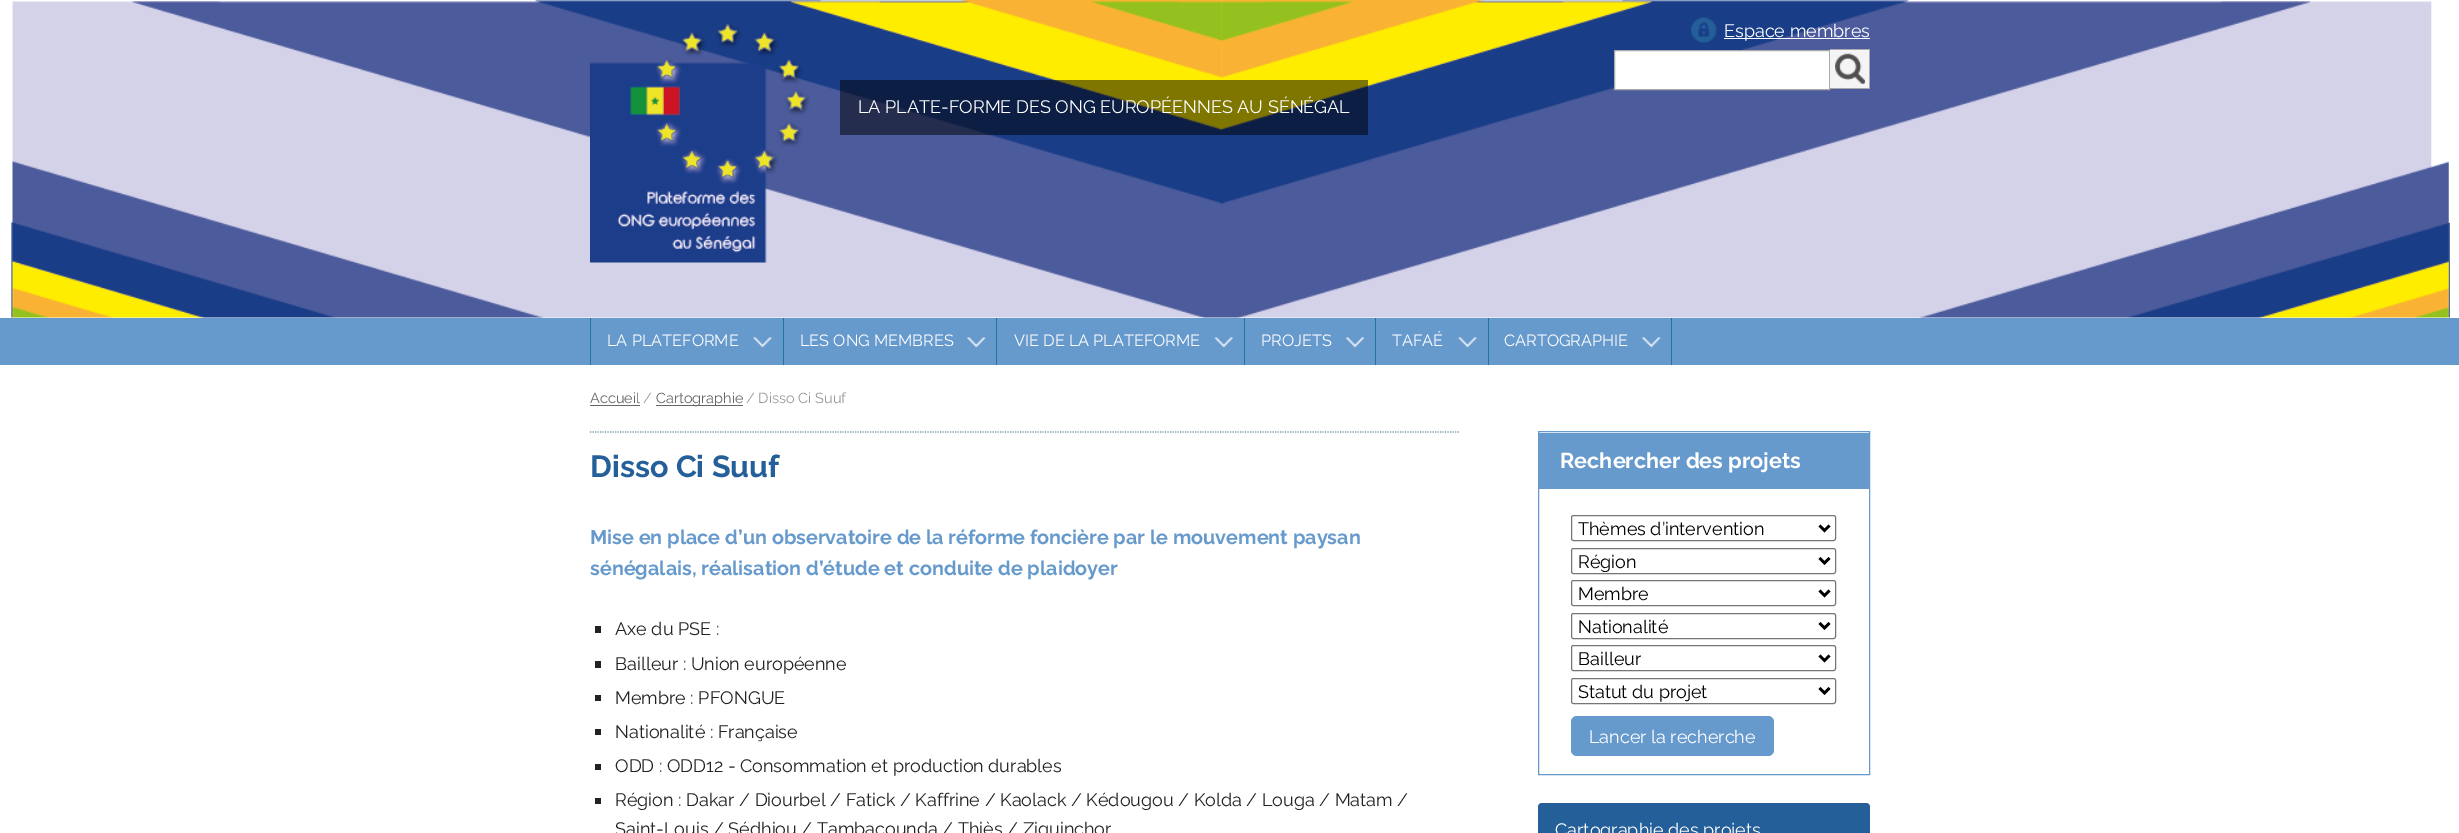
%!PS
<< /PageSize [2459 833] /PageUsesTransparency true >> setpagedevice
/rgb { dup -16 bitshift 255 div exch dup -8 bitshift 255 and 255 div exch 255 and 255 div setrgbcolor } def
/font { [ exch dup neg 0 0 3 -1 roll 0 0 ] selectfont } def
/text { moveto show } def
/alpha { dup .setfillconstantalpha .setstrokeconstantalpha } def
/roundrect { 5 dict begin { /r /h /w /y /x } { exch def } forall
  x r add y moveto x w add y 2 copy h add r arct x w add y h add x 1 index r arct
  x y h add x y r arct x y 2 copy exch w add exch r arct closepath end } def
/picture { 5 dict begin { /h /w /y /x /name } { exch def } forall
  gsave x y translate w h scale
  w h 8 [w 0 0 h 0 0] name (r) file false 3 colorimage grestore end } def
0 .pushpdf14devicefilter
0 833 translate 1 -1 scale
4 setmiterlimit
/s1 { /Raleway-Regular 18 font 16#FFFFFF rgb } def
/s2 { /Raleway-Regular 16.25 font 16#FFFFFF rgb } def
/s3 { /Raleway-Regular 14.5 font 16#666666 rgb } def
/s4 { /Raleway-Regular 14.5 font 16#999999 rgb } def
/s5 { /Raleway-Bold 30.5 font 16#255F99 rgb } def
/s6 { /Raleway-Bold 19.8 font 16#6699CC rgb } def
/s7 { /Raleway-Regular 18 font 16#222222 rgb } def
/s8 { /Raleway-Bold 21.6 font 16#FFFFFF rgb } def
/s9 { /Raleway-Regular 18 font 16#000000 rgb } def
16#FFFFFF rgb
0 0 2459 833 rectfill
(pic1.raw) 11 0 2439 318 picture
(pic2.raw) 1691 17 26 26 picture
1724 38 146 1 rectfill
s1
(Espace membres) 1724 37 text
1614.5 50.5 moveto 1829.5 50.5 lineto 1829.5 89.5 lineto 1614.5 89.5 lineto closepath gsave fill grestore
16#AAAAAA rgb
stroke
16#F4F4F4 rgb
1830 50 39 38 rectfill
(pic3.raw) 1835 53 30 31 picture
16#AAAAAA rgb
1830 49 40 1 rectfill
1869 49 1 40 rectfill
1830 88 40 1 rectfill
(pic4.raw) 590 23 220 240 picture
0.5 alpha
16#000000 rgb
840 80 528 55 rectfill
1 alpha
s1
(LA PLATE-FORME DES ONG EUROPÉENNES AU SÉNÉGAL) 858 113 text
16#6699CC rgb
0 318 2459 47 rectfill
16#2273A4 rgb
590 318 1 47 rectfill
(pic5.raw) 752 337 21 11 picture
783 318 1 47 rectfill
s2
(LA PLATEFORME) 607 346 text
(pic6.raw) 966 337 20 11 picture
16#2273A4 rgb
996 318 1 47 rectfill
s2
(LES ONG MEMBRES) 800 346 text
(pic7.raw) 1214 337 20 11 picture
16#2273A4 rgb
1244 318 1 47 rectfill
s2
(VIE DE LA PLATEFORME) 1014 346 text
(pic8.raw) 1345 337 20 11 picture
16#2273A4 rgb
1375 318 1 47 rectfill
s2
(PROJETS) 1261 346 text
(pic5.raw) 1457 337 21 11 picture
16#2273A4 rgb
1488 318 1 47 rectfill
s2
(TAFAÉ) 1392 346 text
(pic6.raw) 1641 337 20 11 picture
16#2273A4 rgb
1671 318 1 47 rectfill
s2
(CARTOGRAPHIE) 1504 346 text
s3
(Accueil) 590 403 text
590 405 50 1 rectfill
s4
(/) 643 403 text
16#666666 rgb
656 405 87 1 rectfill
(Cartographie) 656 403 text
s4
(/ Disso Ci Suuf) 746 403 text
16#7B96A7 rgb
1.2 setlinewidth
[1.25 1.25] 0 setdash
590 432 moveto 1460 432 lineto stroke
s5
(Disso Ci Suuf) 590 477 text
s6
(Mise en place d’un observatoire de la réforme foncière par le mouvement paysan) 590 544 text
(sénégalais, réalisation d’étude et conduite de plaidoyer) 590 575 text
16#222222 rgb
595 626 6 7 rectfill
s7
(Axe du PSE :) 615 635 text
595 661 6 7 rectfill
(Bailleur : Union européenne) 615 670 text
595 695 6 6 rectfill
(Membre : PFONGUE) 615 704 text
595 729 6 6 rectfill
(Nationalité : Française) 615 738 text
595 764 6 6 rectfill
(ODD : ODD12 - Consommation et production durables) 615 772 text
595 798 6 6 rectfill
(Région : Dakar / Diourbel / Fatick / Kaffrine / Kaolack / Kédougou / Kolda / Louga / Matam /) 615 806 text
(Saint-Louis / Sédhiou / Tambacounda / Thiès / Ziguinchor) 615 835 text
16#6699CC rgb
1 setlinewidth
[] 0 setdash
1538.5 431.5 331 343 rectstroke
1539 433 330 56 rectfill
s8
(Rechercher des projets) 1560 468 text
16#767676 rgb
1571.5 515.5 264 25 2 roundrect stroke
16#000000 rgb
2.5 setlinewidth
1819.5 525.5 moveto 1824.5 530.5 lineto 1829.5 525.5 lineto stroke
s9
(Thèmes d’intervention) 1578 535 text
16#767676 rgb
1 setlinewidth
1571.5 548.5 264 25 2 roundrect stroke
16#000000 rgb
2.5 setlinewidth
1819.5 558 moveto 1824.5 563 lineto 1829.5 558 lineto stroke
(Région) 1578 568 text
16#767676 rgb
1 setlinewidth
1571.5 580.5 264 25 2 roundrect stroke
16#000000 rgb
2.5 setlinewidth
1819.5 590.5 moveto 1824.5 595.5 lineto 1829.5 590.5 lineto stroke
(Membre) 1578 600 text
16#767676 rgb
1 setlinewidth
1571.5 613.5 264 25 2 roundrect stroke
16#000000 rgb
2.5 setlinewidth
1819.5 623 moveto 1824.5 628 lineto 1829.5 623 lineto stroke
(Nationalité) 1578 633 text
16#767676 rgb
1 setlinewidth
1571.5 645.5 264 25 2 roundrect stroke
16#000000 rgb
2.5 setlinewidth
1819.5 655.5 moveto 1824.5 660.5 lineto 1829.5 655.5 lineto stroke
(Bailleur) 1578 665 text
16#767676 rgb
1 setlinewidth
1571.5 678.5 264 25 2 roundrect stroke
16#000000 rgb
2.5 setlinewidth
1819.5 688 moveto 1824.5 693 lineto 1829.5 688 lineto stroke
(Statut du projet) 1578 698 text
16#6699CC rgb
1571 716 203 40 6 roundrect fill
s1
(Lancer la recherche) 1589 743 text
16#255F99 rgb
1538 803 332 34 4 roundrect fill
s1
(Cartographie des projets) 1555 836 text
.poppdf14devicefilter showpage
